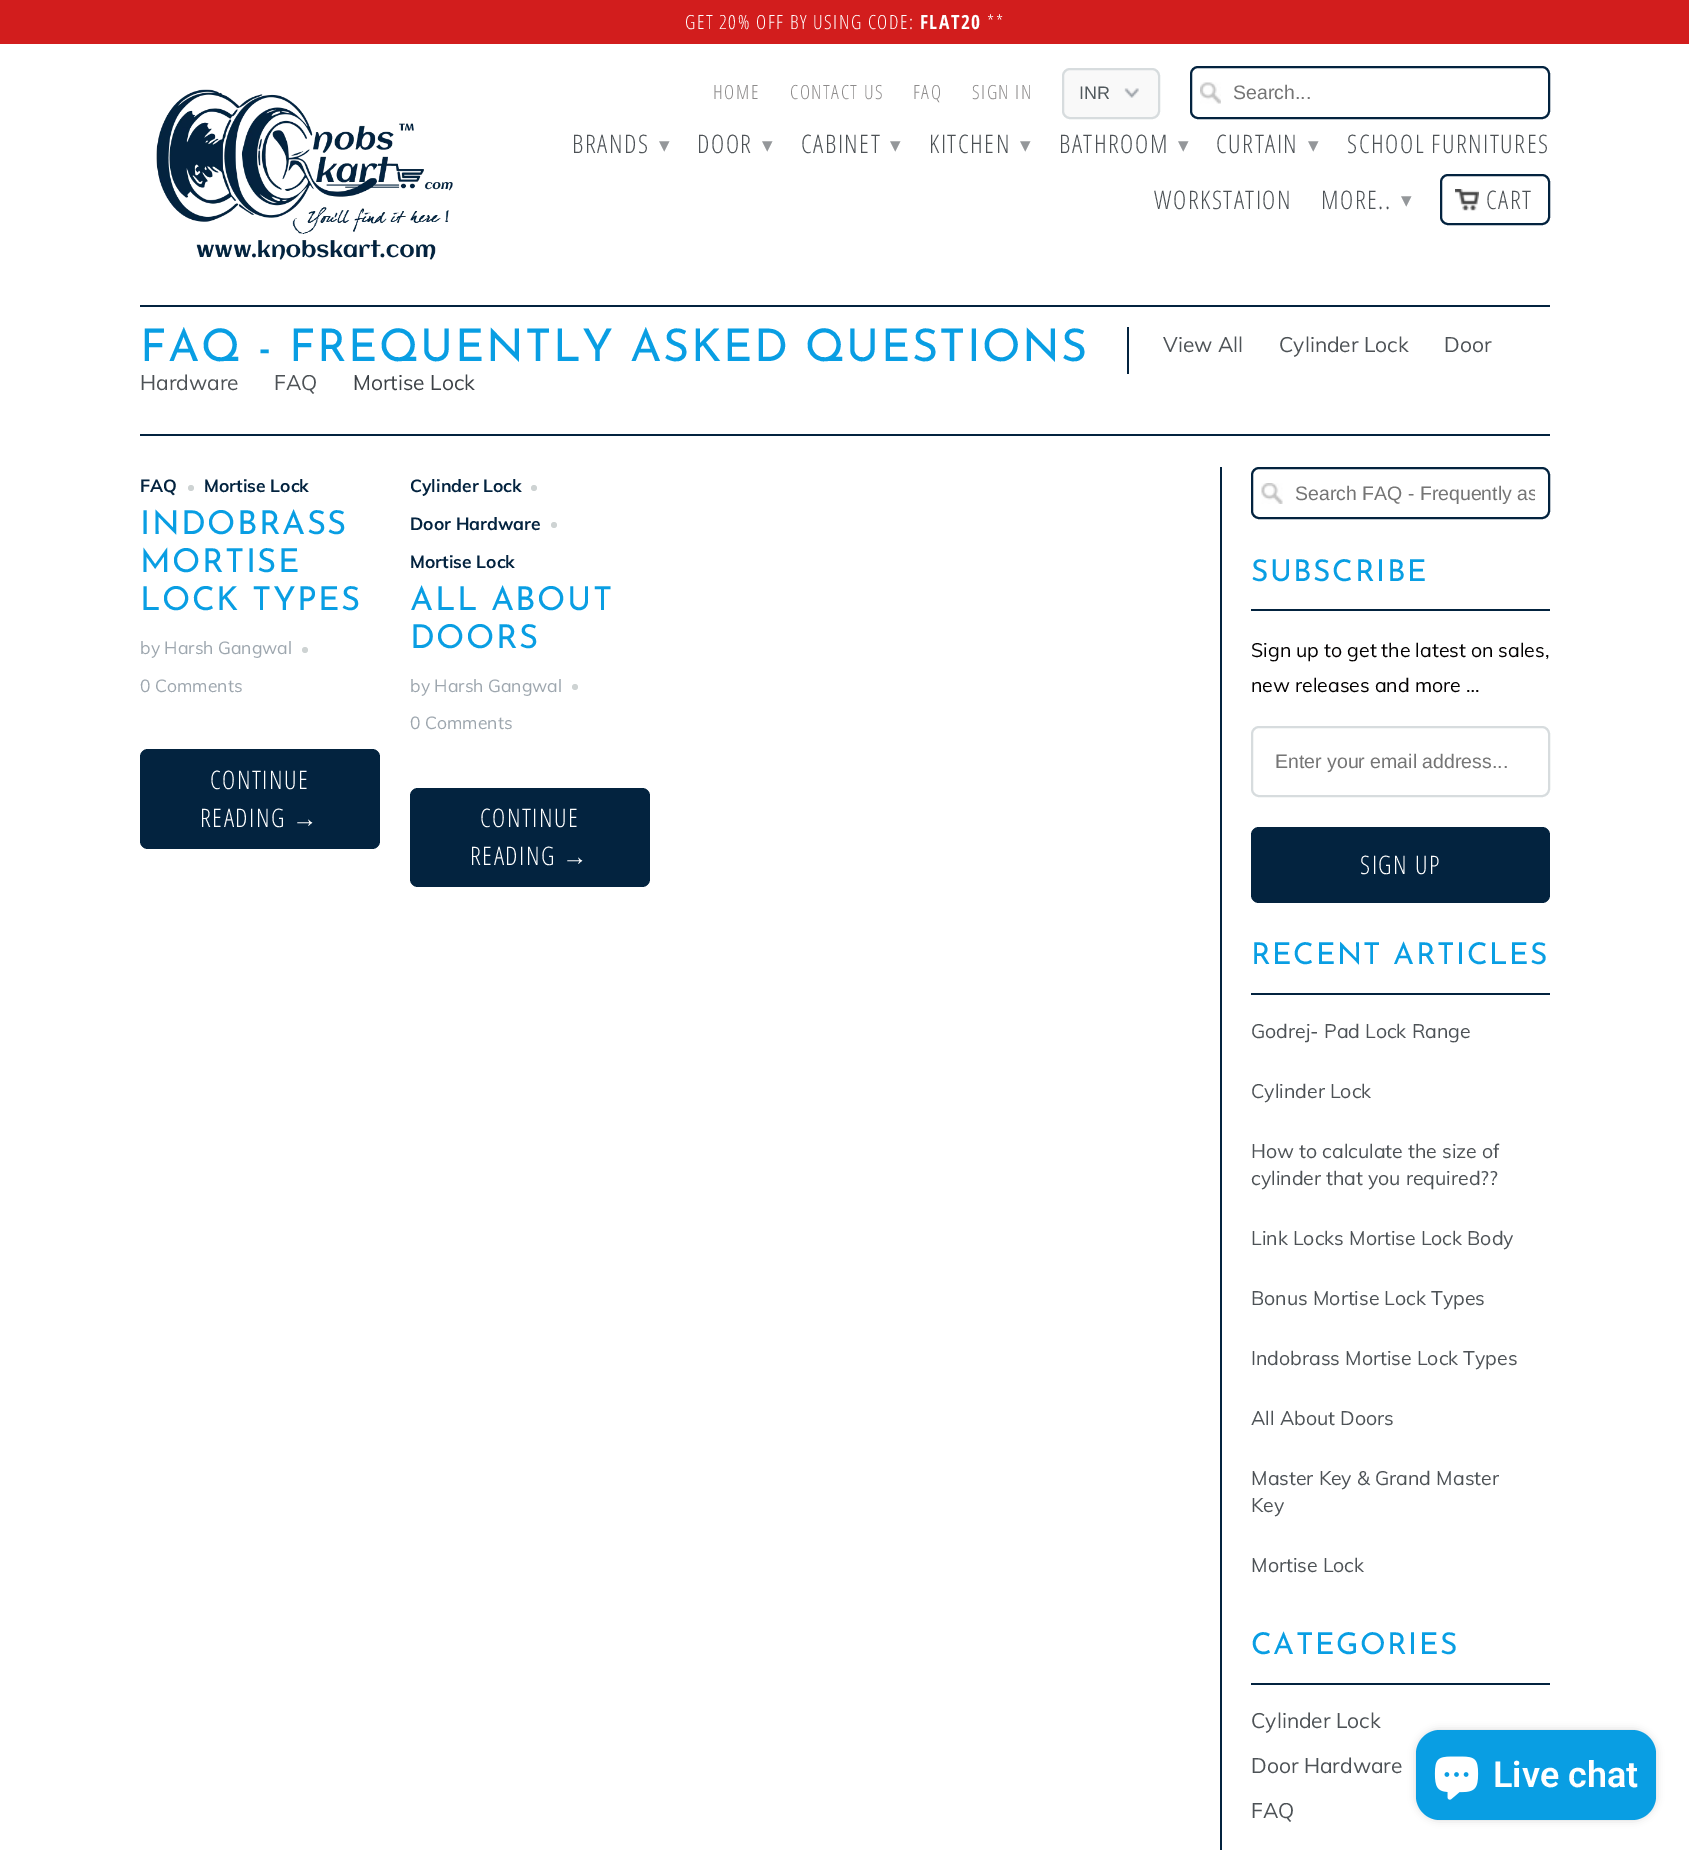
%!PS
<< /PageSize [1689 1850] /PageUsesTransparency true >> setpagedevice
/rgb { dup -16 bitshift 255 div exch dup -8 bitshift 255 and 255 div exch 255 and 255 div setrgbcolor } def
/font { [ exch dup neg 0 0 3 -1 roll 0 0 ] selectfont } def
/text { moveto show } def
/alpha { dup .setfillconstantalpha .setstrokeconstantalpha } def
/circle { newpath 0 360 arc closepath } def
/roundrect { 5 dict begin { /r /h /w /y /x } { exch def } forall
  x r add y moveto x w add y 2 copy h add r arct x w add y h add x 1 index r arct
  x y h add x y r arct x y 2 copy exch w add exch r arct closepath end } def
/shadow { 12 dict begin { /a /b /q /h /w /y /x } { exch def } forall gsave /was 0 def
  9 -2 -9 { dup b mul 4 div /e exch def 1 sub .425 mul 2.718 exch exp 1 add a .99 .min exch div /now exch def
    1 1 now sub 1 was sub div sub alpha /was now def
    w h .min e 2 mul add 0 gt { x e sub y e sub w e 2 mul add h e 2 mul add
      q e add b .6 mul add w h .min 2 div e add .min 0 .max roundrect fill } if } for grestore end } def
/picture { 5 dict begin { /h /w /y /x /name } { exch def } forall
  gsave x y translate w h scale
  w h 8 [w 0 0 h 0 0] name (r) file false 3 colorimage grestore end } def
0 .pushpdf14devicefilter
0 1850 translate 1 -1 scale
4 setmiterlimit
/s1 { /LiberationSans-Regular 18 font 16#51595D rgb } def
/s2 { /LiberationSans-Regular 19.5 font 16#757575 rgb } def
/s3 { /Muli-Regular 21 font 16#4D5256 rgb } def
/s4 { /Muli-Regular 21 font 16#3D4247 rgb } def
/s5 { /Muli-Bold 17.5 font 16#03233F rgb } def
/s6 { /Muli-Regular 17.5 font 16#9DA6AE rgb } def
/s7 { /Muli-Regular 19.5 font 16#030101 rgb } def
/s8 { /Muli-Regular 19.5 font 16#4D5256 rgb } def
/s9 { /Roboto-SemiBold 36 font 16#FFFFFF rgb } def
16#FFFFFF rgb
0 0 1689 1850 rectfill
16#D21D1D rgb
0 0 1689 44 rectfill
/OpenSansCondensed-Light 19.5 font
16#FFFFFF rgb
685 29 moveto 1.5 0 (GET 20% OFF BY USING CODE:) ashow
/OpenSansCondensed-Bold 19.5 font
920 29 moveto 1.5 0 (FLAT20) ashow
/OpenSansCondensed-Light 19.5 font
987 29 moveto 1.5 0 (**) ashow
16#03233F rgb
140 305 1410 2 rectfill
(pic1.raw) 156 89 297 171 picture
16#8D8B8B rgb
713 99 moveto 1.5 0 (HOME) ashow
790 99 moveto 1.5 0 (CONTACT US) ashow
913 99 moveto 1.5 0 (FAQ) ashow
972 99 moveto 1.5 0 (SIGN IN) ashow
16#F9F9F9 rgb
1062 68 98 51 8 roundrect fill
(pic2.raw) 1124 88 15 10 picture
16#D7DCDE rgb
2 setlinewidth
1063 69 96 49 7 roundrect stroke
s1
(INR) 1079 99 text
(pic3.raw) 1200 82 21 22 picture
16#03233F rgb
1191 67 358 51 7 roundrect stroke
s2
(Search...) 1233 99 text
/OpenSansCondensed-Light 25.5 font
16#4D5256 rgb
572 153 moveto 1.5 0 (BRANDS) ashow
/DejaVuSans-Regular 21 font
16#94979A rgb
659 152 moveto 1.5 0 (▾) ashow
/OpenSansCondensed-Light 25.5 font
16#4D5256 rgb
697 153 moveto 1.5 0 (DOOR) ashow
/DejaVuSans-Regular 21 font
16#94979A rgb
762 152 moveto 1.5 0 (▾) ashow
/OpenSansCondensed-Light 25.5 font
16#4D5256 rgb
801 153 moveto 1.5 0 (CABINET) ashow
/DejaVuSans-Regular 21 font
16#94979A rgb
890 152 moveto 1.5 0 (▾) ashow
/OpenSansCondensed-Light 25.5 font
16#4D5256 rgb
929 153 moveto 1.5 0 (KITCHEN) ashow
/DejaVuSans-Regular 21 font
16#94979A rgb
1020 152 moveto 1.5 0 (▾) ashow
/OpenSansCondensed-Light 25.5 font
16#4D5256 rgb
1059 153 moveto 1.5 0 (BATHROOM) ashow
/DejaVuSans-Regular 21 font
16#94979A rgb
1178 152 moveto 1.5 0 (▾) ashow
/OpenSansCondensed-Light 25.5 font
16#4D5256 rgb
1216 153 moveto 1.5 0 (CURTAIN) ashow
/DejaVuSans-Regular 21 font
16#94979A rgb
1308 152 moveto 1.5 0 (▾) ashow
/OpenSansCondensed-Light 25.5 font
16#4D5256 rgb
1347 153 moveto 1.5 0 (SCHOOL FURNITURES) ashow
1154 209 moveto 1.5 0 (WORKSTATION) ashow
1321 209 moveto 1.5 0 (MORE..) ashow
/DejaVuSans-Regular 21 font
16#94979A rgb
1401 207 moveto 1.5 0 (▾) ashow
(pic4.raw) 1455 189 24 22 picture
16#03233F rgb
1441 175 108 49 7 roundrect stroke
/OpenSansCondensed-Light 25.5 font
16#4D5256 rgb
1486 209 moveto 1.5 0 (CART) ashow
16#03233F rgb
140 434 1410 2 rectfill
/JosefinSans-Regular 45 font
16#099EE3 rgb
140 361 moveto 1.5 0 (FAQ - FREQUENTLY ASKED QUESTIONS) ashow
16#03233F rgb
1127 327 2 47 rectfill
s3
(View All) 1163 352 text
(Cylinder Lock) 1279 352 text
(Door) 1444 352 text
(Hardware) 140 390 text
(FAQ) 274 390 text
s4
(Mortise Lock) 353 390 text
s5
(FAQ) 140 492 text
16#CED3D3 rgb
191 488 3 circle fill
s5
(Mortise Lock) 204 492 text
/JosefinSans-Regular 33 font
16#099EE3 rgb
140 534 moveto 1.5 0 (INDOBRASS) ashow
140 572 moveto 1.5 0 (MORTISE) ashow
140 610 moveto 1.5 0 (LOCK TYPES) ashow
s6
(by Harsh Gangwal) 140 654 text
16#CED3D3 rgb
305 650 3 circle fill
s6
(0 Comments) 140 692 text
16#03233F rgb
140 749 240 100 8 roundrect fill
/OpenSansCondensed-Light 25.5 font
16#FFFFFF rgb
210 789 moveto 1.5 0 (CONTINUE) ashow
200 827 moveto 1.5 0 (READING) ashow
/LiberationSerif-Regular 25.5 font
292 827 moveto 1.5 0 (→) ashow
s5
(Cylinder Lock) 410 492 text
16#CED3D3 rgb
534 488 3 circle fill
s5
(Door Hardware) 410 530 text
16#CED3D3 rgb
554 525 3 circle fill
s5
(Mortise Lock) 410 568 text
/JosefinSans-Regular 33 font
16#099EE3 rgb
410 610 moveto 1.5 0 (ALL ABOUT) ashow
410 648 moveto 1.5 0 (DOORS) ashow
s6
(by Harsh Gangwal) 410 692 text
16#CED3D3 rgb
575 687 3 circle fill
s6
(0 Comments) 410 729 text
16#03233F rgb
410 788 240 99 8 roundrect fill
/OpenSansCondensed-Light 25.5 font
16#FFFFFF rgb
480 827 moveto 1.5 0 (CONTINUE) ashow
470 865 moveto 1.5 0 (READING) ashow
/LiberationSerif-Regular 25.5 font
562 865 moveto 1.5 0 (→) ashow
16#03233F rgb
1220 467 2 1383 rectfill
(pic5.raw) 1261 483 22 21 picture
1252 468 297 50 7 roundrect stroke
gsave
1295 482 240 22 rectclip
s2
(Search FAQ - Frequently as) 1295 500 text
grestore
1251 609 299 2 rectfill
/JosefinSans-Regular 30 font
16#099EE3 rgb
1251 581 moveto 1.5 0 (SUBSCRIBE) ashow
s7
(Sign up to get the latest on sales,) 1251 657 text
(new releases and more …) 1251 692 text
16#D7DCDE rgb
1252 727 297 69 7 roundrect stroke
s2
(Enter your email address...) 1275 768 text
16#03233F rgb
1251 827 299 76 8 roundrect fill
/OpenSansCondensed-Light 25.5 font
16#FFFFFF rgb
1360 874 moveto 1.5 0 (SIGN UP) ashow
16#03233F rgb
1251 993 299 2 rectfill
/JosefinSans-Regular 30 font
16#099EE3 rgb
1251 964 moveto 1.5 0 (RECENT ARTICLES) ashow
s8
(Godrej- Pad Lock Range) 1251 1038 text
(Cylinder Lock) 1251 1098 text
(How to calculate the size of) 1251 1158 text
(cylinder that you required??) 1251 1185 text
(Link Locks Mortise Lock Body) 1251 1245 text
(Bonus Mortise Lock Types) 1251 1305 text
(Indobrass Mortise Lock Types) 1251 1365 text
(All About Doors) 1251 1425 text
(Master Key & Grand Master) 1251 1485 text
(Key) 1251 1512 text
(Mortise Lock) 1251 1572 text
16#03233F rgb
1251 1683 299 2 rectfill
/JosefinSans-Regular 30 font
16#099EE3 rgb
1251 1654 moveto 1.5 0 (CATEGORIES) ashow
s3
(Cylinder Lock) 1251 1728 text
(Door Hardware) 1251 1773 text
(FAQ) 1251 1818 text
16#000000 rgb
1416 1730 240 90 24 4 0.15 shadow
16#099EE3 rgb
1416 1730 240 90 24 roundrect fill
(pic6.raw) 1434 1756 45 44 picture
s9
(Live chat) 1493 1787 text
.poppdf14devicefilter showpage
